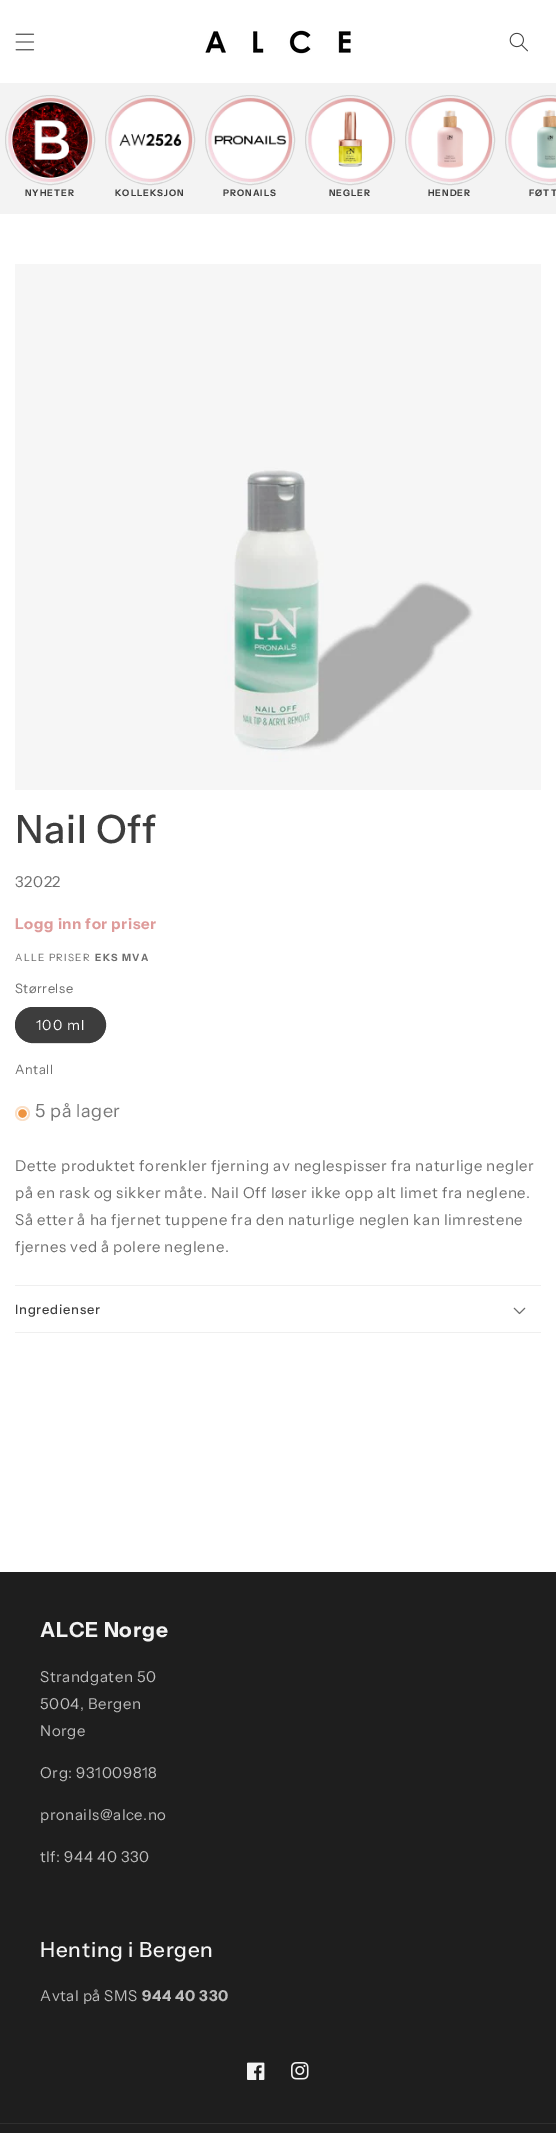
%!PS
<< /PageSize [556 2133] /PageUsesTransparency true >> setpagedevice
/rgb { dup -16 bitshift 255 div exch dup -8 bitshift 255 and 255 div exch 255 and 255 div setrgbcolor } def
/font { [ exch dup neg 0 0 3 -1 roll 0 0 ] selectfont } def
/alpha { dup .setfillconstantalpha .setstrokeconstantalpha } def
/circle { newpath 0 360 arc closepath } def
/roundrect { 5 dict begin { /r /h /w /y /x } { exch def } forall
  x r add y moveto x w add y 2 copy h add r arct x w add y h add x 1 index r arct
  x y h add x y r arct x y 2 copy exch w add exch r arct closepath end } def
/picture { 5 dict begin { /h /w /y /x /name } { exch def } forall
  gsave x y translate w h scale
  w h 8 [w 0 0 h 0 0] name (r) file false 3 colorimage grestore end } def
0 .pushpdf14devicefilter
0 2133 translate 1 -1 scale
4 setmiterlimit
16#FFFFFF rgb
0 0 556 2133 rectfill
(pic1.raw) 15 33 20 18 picture
(pic2.raw) 205 30 146 24 picture
(pic3.raw) 509 32 19 20 picture
16#F3F3F3 rgb
0 83 556 131 rectfill
16#D4D4D4 rgb
50 140 44.5 circle stroke
(pic4.raw) 8 97 85 85 picture
/InstrumentSans-Bold 9 font
16#3D3D3D rgb
25 196 moveto 1 0 (NYHETER) ashow
16#D4D4D4 rgb
150 140 44.5 circle stroke
(pic5.raw) 108 97 85 85 picture
16#3D3D3D rgb
115 196 moveto 1 0 (KOLLEKSJON) ashow
16#D4D4D4 rgb
250 140 44.5 circle stroke
(pic6.raw) 208 97 85 85 picture
16#3D3D3D rgb
223 196 moveto 1 0 (PRONAILS) ashow
16#D4D4D4 rgb
350 140 44.5 circle stroke
(pic7.raw) 308 97 85 85 picture
16#3D3D3D rgb
329 196 moveto 1 0 (NEGLER) ashow
16#D4D4D4 rgb
450 140 44.5 circle stroke
(pic8.raw) 408 97 85 85 picture
16#3D3D3D rgb
428 196 moveto 1 0 (HENDER) ashow
16#D4D4D4 rgb
550 140 44.5 circle stroke
(pic9.raw) 508 97 48 85 picture
16#3D3D3D rgb
529 196 moveto 1 0 (FØTT) ashow
(pic10.raw) 15 264 526 526 picture
/InstrumentSans-Medium 39 font
15 843 moveto 0.75 0 (Nail Off) ashow
/InstrumentSans-Regular 15 font
16#6E6E6E rgb
15 887 moveto 0.6 0 (32022) ashow
/InstrumentSans-Bold 15 font
16#DE9B9A rgb
15 929 moveto 0.6 0 (Logg inn for priser) ashow
/InstrumentSans-Regular 10 font
16#6E6E6E rgb
15 961 moveto 1.25 0 (ALLE PRISER) ashow
/InstrumentSans-Bold 10 font
95 961 moveto 1.25 0 (EKS MVA) ashow
/InstrumentSans-Regular 13 font
15 993 moveto 0.5 0 (Størrelse) ashow
16#3D3D3D rgb
15 1007 91 36 18 roundrect fill
0.6 alpha
15.5 1007.5 90 35 17.5 roundrect stroke
/InstrumentSans-Regular 14 font
1 alpha
16#FFFFFF rgb
36 1030 moveto 1 0 (100 ml) ashow
/InstrumentSans-Regular 13 font
16#6E6E6E rgb
15 1074 moveto 0.5 0 (Antall) ashow
16#FADFC6 rgb
22.5 1113.5 7.5 circle fill
16#EE9441 rgb
22.5 1113.5 5 circle gsave fill grestore
16#FFFFFF rgb
stroke
/InstrumentSans-Regular 18 font
16#777777 rgb
35 1117 moveto 0.6 0 (5 på lager) ashow
/InstrumentSans-Regular 15 font
16#6E6E6E rgb
15 1171 moveto 0.6 0 (Dette produktet forenkler fjerning av neglespisser fra naturlige negler) ashow
15 1198 moveto 0.6 0 (på en rask og sikker måte. Nail Off løser ikke opp alt limet fra neglene.) ashow
15 1225 moveto 0.6 0 (Så etter å ha fjernet tuppene fra den naturlige neglen kan limrestene) ashow
15 1252 moveto 0.6 0 (fjernes ved å polere neglene.) ashow
16#EFEFEF rgb
15 1285 526 1 rectfill
15 1332 526 1 rectfill
/InstrumentSans-Medium 13 font
16#3D3D3D rgb
15 1314 moveto 0.75 0 (Ingredienser) ashow
(pic11.raw) 513 1307 13 8 picture
16#1E1E1E rgb
0 1572 556 561 rectfill
/InstrumentSans-Bold 20.75 font
16#F3F3F3 rgb
40 1637 moveto 0.75 0 (ALCE Norge) ashow
/InstrumentSans-Regular 15 font
16#BEBEBE rgb
40 1682 moveto 0.6 0 (Strandgaten 50) ashow
40 1709 moveto 0.6 0 (5004, Bergen) ashow
40 1736 moveto 0.6 0 (Norge) ashow
40 1778 moveto 0.6 0 (Org: 931009818) ashow
40 1820 moveto 0.6 0 (pronails@alce.no) ashow
40 1862 moveto 0.6 0 (tlf: 944 40 330) ashow
/InstrumentSans-Medium 20.75 font
16#F3F3F3 rgb
40 1957 moveto 0.75 0 (Henting i Bergen) ashow
/InstrumentSans-Regular 15 font
16#BEBEBE rgb
40 2001 moveto 0.6 0 (Avtal på SMS) ashow
/InstrumentSans-Bold 15 font
142 2001 moveto 0.6 0 (944 40 330) ashow
(pic12.raw) 247 2062 18 18 picture
(pic13.raw) 291 2062 18 18 picture
16#2F2F2F rgb
0 2123 556 1 rectfill
.poppdf14devicefilter showpage
